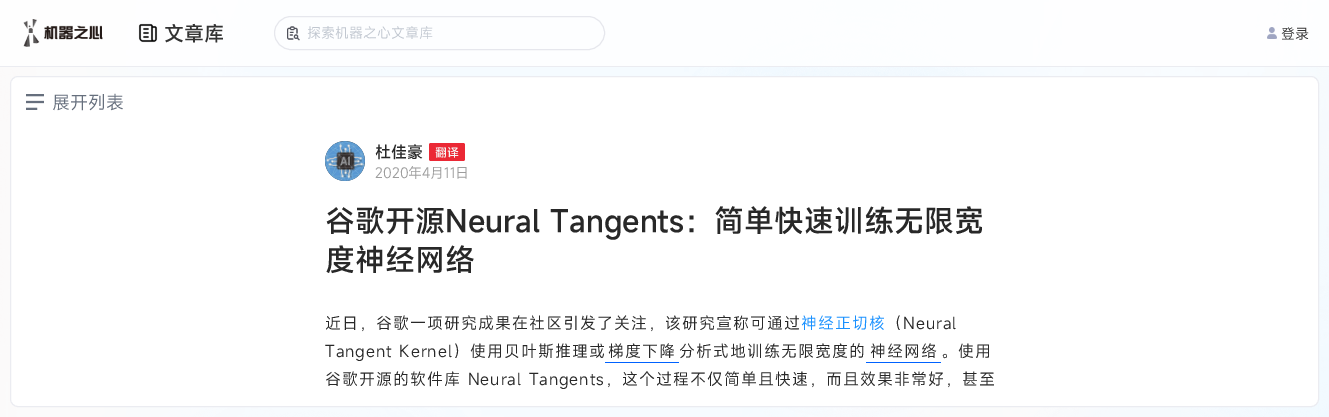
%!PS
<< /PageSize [1329 417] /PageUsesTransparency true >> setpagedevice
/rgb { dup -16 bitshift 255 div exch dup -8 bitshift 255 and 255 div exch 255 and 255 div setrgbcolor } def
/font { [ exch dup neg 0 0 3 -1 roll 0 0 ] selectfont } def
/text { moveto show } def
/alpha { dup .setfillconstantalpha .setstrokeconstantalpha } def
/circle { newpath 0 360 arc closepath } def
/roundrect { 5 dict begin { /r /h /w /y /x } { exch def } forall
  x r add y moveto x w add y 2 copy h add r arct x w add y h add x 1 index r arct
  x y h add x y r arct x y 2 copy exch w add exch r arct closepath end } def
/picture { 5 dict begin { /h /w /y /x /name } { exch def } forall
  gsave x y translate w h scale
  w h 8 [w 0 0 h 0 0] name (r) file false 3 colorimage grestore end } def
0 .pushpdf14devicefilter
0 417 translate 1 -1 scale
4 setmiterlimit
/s1 { /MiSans-Medium 20 font 16#333333 rgb } def
/s2 { /MiSans-Regular 14 font 16#C1C7D0 rgb } def
/s3 { /MiSans-Regular 14 font 16#333333 rgb } def
/s4 { /MiSans-Regular 18 font 16#666F7D rgb } def
/s5 { /MiSans-Medium 16 font 16#282828 rgb } def
/s6 { /MiSans-Medium 12 font 16#F6F6F6 rgb } def
/s7 { /MiSans-Regular 14 font 16#9D9D9D rgb } def
/s8 { /MiSans-Medium 30 font 16#282828 rgb } def
16#FFFFFF rgb
0 0 1329 417 rectfill
(pic1.raw) 0 0 1329 417 picture
16#EBECF1 rgb
0 66 1329 1 rectfill
0.8 alpha
16#FFFFFF rgb
0 0 1329 66 rectfill
1 alpha
(pic2.raw) 23 19 80 28 picture
(pic3.raw) 138 23 20 20 picture
s1
(文章库) 164 41 text
16#E6E7ED rgb
274.5 16.5 330 33 16.5 roundrect stroke
(pic4.raw) 287 26 13 15 picture
s2
(探索机器之心文章库) 307 38 text
(pic5.raw) 1267 27 10 12 picture
s3
(登录) 1281 39 text
16#FFFFFF rgb
10.5 76.5 1308 330 7.5 roundrect gsave fill grestore
16#EBECF1 rgb
stroke
(pic6.raw) 26 94 18 16 picture
s4
(展开列表) 52 109 text
16#333333 rgb
345 161 20 circle fill
(pic7.raw) 325 141 40 40 picture
s5
(杜佳豪) 375 158 text
16#EB2835 rgb
429 143 36 18 2 roundrect fill
s6
(翻译) 435 157 text
s7
(2020年4月11日) 375 178 text
s8
(谷歌开源Neural Tangents：简单快速训练无限宽) 325 232 text
(度神经网络) 325 271 text
/MiSans-Regular 16 font
325 329 moveto 1 0 (近日，谷歌一项研究成果在社区引发了关注，该研究宣称可通过) ashow
16#1890FF rgb
801 329 moveto 1 0 (神经正切核) ashow
16#282828 rgb
886 329 moveto 1 0 (（Neural) ashow
325 357 moveto 1 0 (Tangent Kernel）使用贝叶斯推理或) ashow
608 357 moveto 1 0 (梯度下降) ashow
16#0062FF rgb
605 362 74 1 rectfill
16#282828 rgb
679 357 moveto 1 0 (分析式地训练无限宽度的) ashow
870 357 moveto 1 0 (神经网络) ashow
16#0062FF rgb
866 362 75 1 rectfill
16#282828 rgb
941 357 moveto 1 0 (。使用) ashow
325 385 moveto 1 0 (谷歌开源的软件库 Neural Tangents，这个过程不仅简单且快速，而且效果非常好，甚至) ashow
.poppdf14devicefilter showpage
